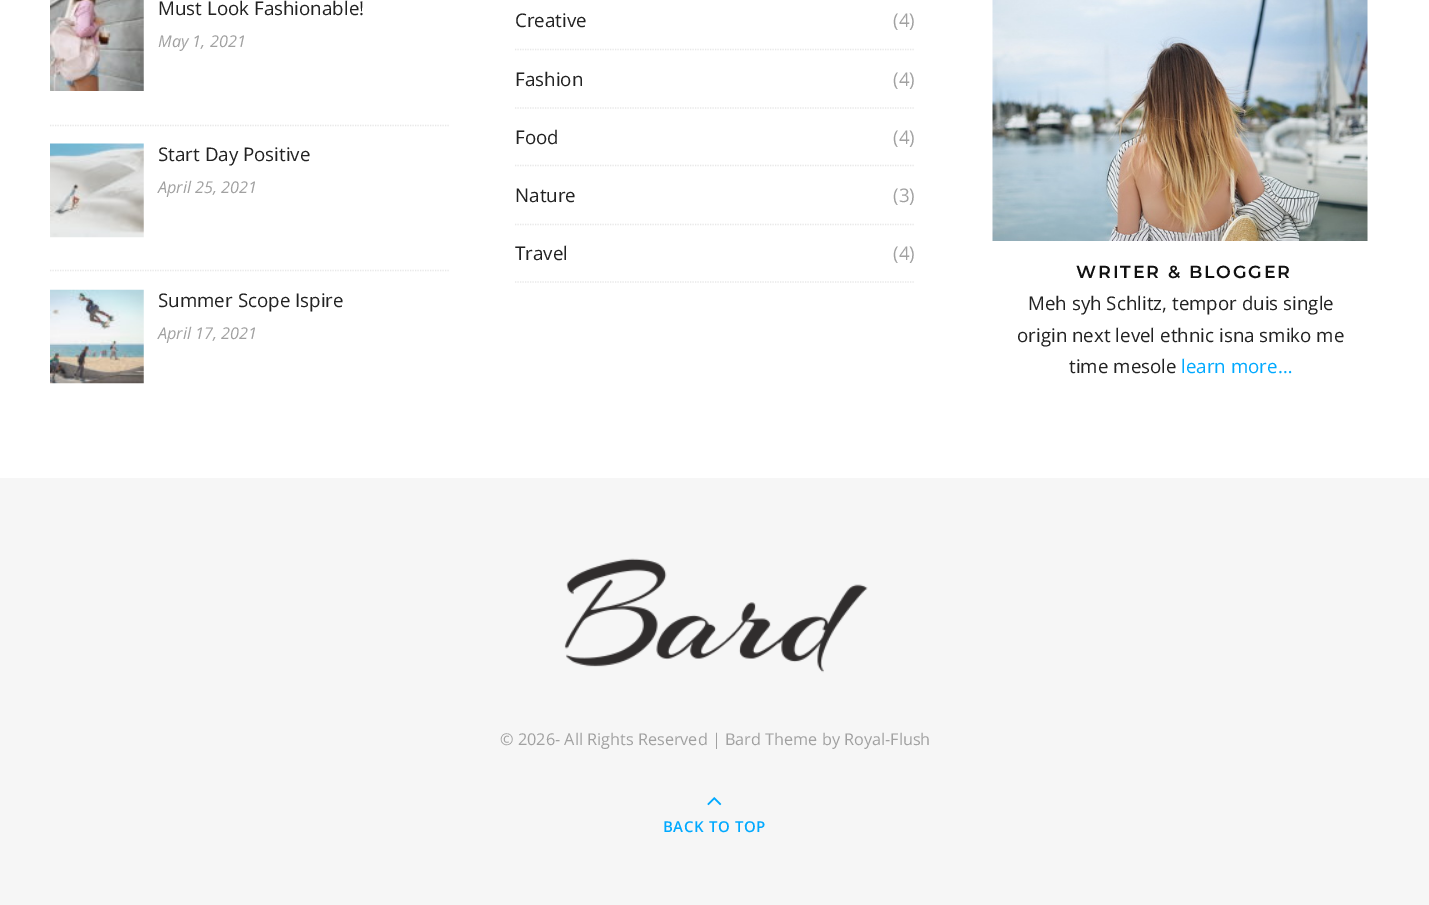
%!PS
<< /PageSize [1429 905] >> setpagedevice
/rgb { dup -16 bitshift 255 div exch dup -8 bitshift 255 and 255 div exch 255 and 255 div setrgbcolor } def
/font { [ exch dup neg 0 0 3 -1 roll 0 0 ] selectfont } def
/text { moveto show } def
/picture { 5 dict begin { /h /w /y /x /name } { exch def } forall
  gsave x y translate w h scale
  w h 8 [w 0 0 h 0 0] name (r) file false 3 colorimage grestore end } def
0 905 translate 1 -1 scale
4 setmiterlimit
/s1 { /OpenSans-Regular 18.75 font 16#222222 rgb } def
/s2 { /OpenSans-Italic 16.25 font 16#A1A1A1 rgb } def
/s3 { /OpenSans-Regular 18.75 font 16#A1A1A1 rgb } def
/s4 { /OpenSans-Regular 18.75 font 16#00A9FF rgb } def
/s5 { /OpenSans-Regular 16.25 font 16#A1A1A1 rgb } def
16#FFFFFF rgb
0 0 1429 905 rectfill
16#E8E8E8 rgb
1.2 setlinewidth
[1.25 1.25] 0 setdash
50 125.5 moveto 449 125.5 lineto stroke
(pic1.raw) 50 0 94 91 picture
s1
(Must Look Fashionable!) 158 15 text
s2
(May 1, 2021) 158 47 text
16#E8E8E8 rgb
50 270.5 moveto 449 270.5 lineto stroke
(pic2.raw) 50 143 94 95 picture
s1
(Start Day Positive) 158 161 text
s2
(April 25, 2021) 158 193 text
(pic3.raw) 50 289 94 95 picture
s1
(Summer Scope Ispire) 158 307 text
s2
(April 17, 2021) 158 339 text
16#E8E8E8 rgb
515 49.5 moveto 915 49.5 lineto stroke
s1
(Creative) 515 27 text
s3
(\(4\)) 893 27 text
16#E8E8E8 rgb
515 108 moveto 915 108 lineto stroke
s1
(Fashion) 515 86 text
s3
(\(4\)) 893 86 text
16#E8E8E8 rgb
515 165.5 moveto 915 165.5 lineto stroke
s1
(Food) 515 144 text
s3
(\(4\)) 893 144 text
16#E8E8E8 rgb
515 224.5 moveto 915 224.5 lineto stroke
s1
(Nature) 515 202 text
s3
(\(3\)) 893 202 text
16#E8E8E8 rgb
515 282 moveto 915 282 lineto stroke
s1
(Travel) 515 260 text
s3
(\(4\)) 893 260 text
(pic4.raw) 992 0 376 241 picture
/Montserrat-SemiBold 17.5 font
16#111111 rgb
1076 278 moveto 1.9 0 (WRITER & BLOGGER) ashow
s1
(Meh syh Schlitz, tempor duis single) 1028 310 text
(origin next level ethnic isna smiko me) 1017 342 text
(time mesole) 1069 373 text
s4
(learn more…) 1181 373 text
16#F6F6F6 rgb
0 478 1429 427 rectfill
(pic5.raw) 564 558 304 115 picture
s5
(© 2026- All Rights Reserved | Bard Theme by Royal-Flush) 500 745 text
(pic6.raw) 707 797 15 9 picture
/OpenSans-SemiBold 15 font
16#00A9FF rgb
663 832 moveto 0.6 0 (BACK TO TOP) ashow
showpage
